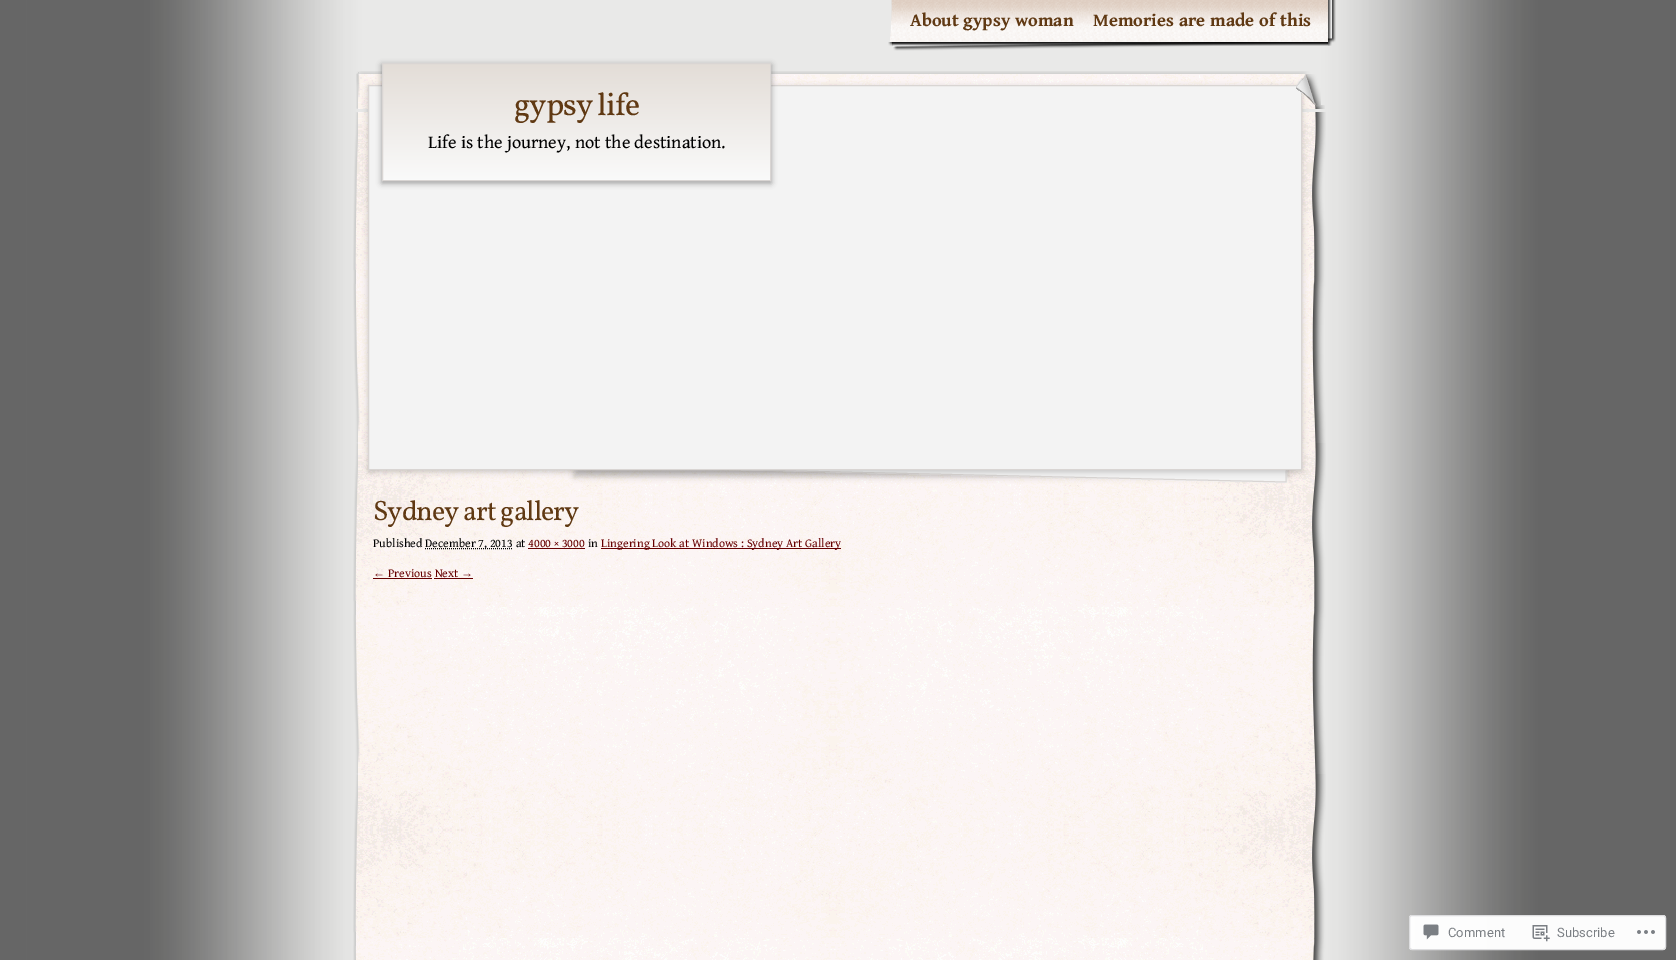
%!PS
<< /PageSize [1676 960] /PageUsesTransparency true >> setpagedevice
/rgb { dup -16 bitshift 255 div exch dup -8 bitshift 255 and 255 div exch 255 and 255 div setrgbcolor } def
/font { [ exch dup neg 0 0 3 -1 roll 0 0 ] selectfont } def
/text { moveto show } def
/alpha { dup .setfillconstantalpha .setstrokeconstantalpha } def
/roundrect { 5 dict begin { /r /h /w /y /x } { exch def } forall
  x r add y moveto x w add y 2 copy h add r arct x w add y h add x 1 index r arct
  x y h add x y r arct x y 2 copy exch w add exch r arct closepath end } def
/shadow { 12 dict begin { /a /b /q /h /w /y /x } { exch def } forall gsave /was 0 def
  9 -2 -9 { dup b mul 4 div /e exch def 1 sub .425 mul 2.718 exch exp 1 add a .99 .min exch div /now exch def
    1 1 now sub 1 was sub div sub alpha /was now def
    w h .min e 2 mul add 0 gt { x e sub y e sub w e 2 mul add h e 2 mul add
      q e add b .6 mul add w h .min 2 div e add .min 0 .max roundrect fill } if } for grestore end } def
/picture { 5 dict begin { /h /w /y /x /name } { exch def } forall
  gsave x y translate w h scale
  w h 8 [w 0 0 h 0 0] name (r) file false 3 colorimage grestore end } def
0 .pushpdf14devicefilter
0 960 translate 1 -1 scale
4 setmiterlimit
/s1 { /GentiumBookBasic-Bold 18.25 font 16#603913 rgb } def
/s2 { /GentiumBookBasic-Regular 18.25 font 16#000000 rgb } def
/s3 { /GentiumBookBasic-Regular 12 font 16#000000 rgb } def
/s4 { /GentiumBookBasic-Regular 12 font 16#660000 rgb } def
/s5 { /LiberationSerif-Regular 12 font 16#660000 rgb } def
/s6 { /Roboto-Regular 13 font 16#7B7F84 rgb } def
16#E9E9E8 rgb
0 0 1676 960 rectfill
(pic1.raw) 0 0 1676 960 picture
(pic2.raw) 888 0 440 51 picture
(pic3.raw) 892 0 436 46 picture
s1
(About gypsy woman) 910 26 text
(Memories are made of this) 1093 26 text
(pic4.raw) 1328 0 8 46 picture
(pic5.raw) 356 71 969 38 picture
(pic7.raw) 353 112 973 848 picture
16#000000 rgb
574 361 714 116 0 3 0.2 shadow
16#F3F3F3 rgb
575 350 moveto 1289 367 lineto 1287 483 lineto 573 466 lineto closepath fill
16#D9D5D3 rgb
576 351 moveto 1288.5 367 lineto 1286 482 lineto 573.5 466 lineto closepath stroke
16#000000 rgb
368 87 934 385 0 3 0.2 shadow
16#F3F3F3 rgb
368.5 85.5 moveto 1301.5 85.5 lineto 1301.5 469.5 lineto 368.5 469.5 lineto closepath gsave fill grestore
16#D9D5D3 rgb
stroke
(pic6.raw) 1296 74 25 32 picture
16#000000 rgb
382 65 389 118 0 3 0.4 shadow
gsave 383 64 moveto 770 64 lineto 770 180 lineto 383 180 lineto closepath clip newpath
<< /ShadingType 2 /ColorSpace /DeviceRGB /Coords [577 64 577 180] /Extend [true true] /Function << /FunctionType 2 /Domain [0 1] /C0 [0.89 0.867 0.843] /C1 [0.98 0.98 0.98] /N 1 >> >> shfill grestore
16#D9D5D3 rgb
382.5 63.5 388 117 rectstroke
/Vollkorn-Regular 32 font
16#603913 rgb
514 115 moveto -1 0 (gypsy life) ashow
s2
(Life is the journey, not the destination.) 428 148 text
/Vollkorn-Regular 28 font
16#603913 rgb
373 520 moveto -1 0 (Sydney art gallery) ashow
s3
(Published) 373 547 text
[1 1] 0 setdash
425 548.5 moveto 513 548.5 lineto stroke
(December 7, 2013 at) 425 547 text
s4
(4000 × 3000) 528 547 text
528 548 57 1 rectfill
s3
(in) 588 547 text
16#660000 rgb
601 548 240 1 rectfill
(Lingering Look at Windows : Sydney Art Gallery) 601 547 text
s5
(←) 373 577 text
373 578 59 1 rectfill
s4
(Previous Next) 388 577 text
s5
(→) 461 577 text
434 578 39 1 rectfill
0.98 alpha
16#FFFFFF rgb
1409 915 257 35 3 roundrect fill
16#DCDCDE rgb
[] 0 setdash
1409.5 915.5 256 34 2.5 roundrect stroke
1 alpha
(pic8.raw) 1423 924 16 16 picture
s6
(Comment) 1448 937 text
(pic9.raw) 1532 925 18 17 picture
(Subscribe) 1557 937 text
(pic10.raw) 1637 930 18 4 picture
.poppdf14devicefilter showpage
